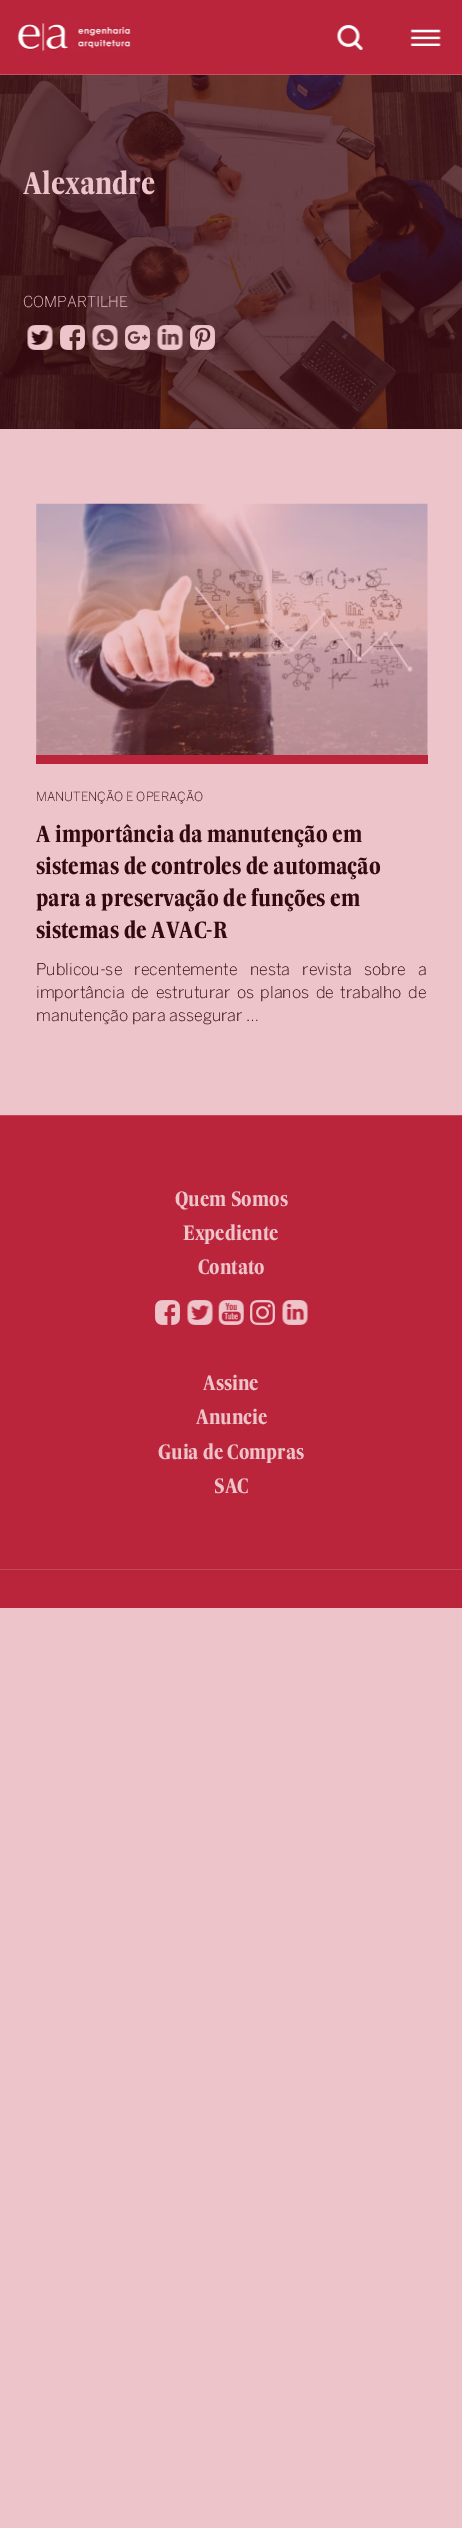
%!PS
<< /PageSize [462 2528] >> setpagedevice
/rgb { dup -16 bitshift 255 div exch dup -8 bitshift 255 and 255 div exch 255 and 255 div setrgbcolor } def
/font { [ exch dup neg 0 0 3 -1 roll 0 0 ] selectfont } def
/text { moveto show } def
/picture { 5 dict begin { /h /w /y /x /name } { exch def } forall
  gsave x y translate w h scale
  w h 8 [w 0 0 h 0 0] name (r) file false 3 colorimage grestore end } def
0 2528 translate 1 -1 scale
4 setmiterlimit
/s1 { /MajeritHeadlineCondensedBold-Bold 30 font 16#EDC4CA rgb } def
/s2 { /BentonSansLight-Light 15 font 16#EDC4CA rgb } def
/s3 { /BentonSansLight-Light 12.5 font 16#320A10 rgb } def
/s4 { /MajeritHeadlineCondensedBold-Bold 22.5 font 16#320A10 rgb } def
/s5 { /BentonSansLight-Light 16.25 font 16#320A10 rgb } def
/s6 { /MajeritHeadlineCondensedBold-Bold 20 font 16#EDC4CA rgb } def
16#EDC4CA rgb
0 0 462 2528 rectfill
16#BB253C rgb
0 0 462 74 rectfill
16#C95163 rgb
0 74 462 1 rectfill
(pic1.raw) 17 22 114 29 picture
(pic2.raw) 337 25 26 25 picture
(pic3.raw) 410 29 31 17 picture
(pic4.raw) 0 75 462 354 picture
s1
(Alexandre) 23 194 text
s2
(COMPARTILHE) 23 307 text
(pic5.raw) 27 325 26 25 picture
(pic6.raw) 60 325 25 25 picture
(pic7.raw) 92 325 26 25 picture
(pic8.raw) 125 325 25 25 picture
(pic9.raw) 157 325 26 25 picture
(pic10.raw) 190 325 25 25 picture
16#BB253C rgb
36 755 392 9 rectfill
(pic11.raw) 36 503 392 252 picture
s3
(MANUTENÇÃO E OPERAÇÃO) 36 801 text
s4
(A importância da manutenção em) 36 842 text
(sistemas de controles de automação) 36 874 text
(para a preservação de funções em) 36 906 text
(sistemas de AVAC-R) 36 938 text
/BentonSansLight-Light 16.25 font
36 975 moveto 8.5 0 32 (Publicou-se recentemente nesta revista sobre a) widthshow
36 998 moveto 3 0 32 (importância de estruturar os planos de trabalho de) widthshow
(manutenção para assegurar …) 36 1021 text
16#BB253C rgb
0 1116 462 453 rectfill
16#C54558 rgb
0 1115 462 1 rectfill
0 1569 462 1 rectfill
s6
(Quem Somos) 175 1206 text
(Expediente) 183 1240 text
(Contato) 198 1274 text
(pic12.raw) 155 1300 25 25 picture
(pic13.raw) 187 1300 26 25 picture
(pic14.raw) 218 1300 26 25 picture
(pic15.raw) 250 1300 25 25 picture
(pic16.raw) 282 1300 26 25 picture
(Assine) 203 1390 text
(Anuncie) 196 1424 text
(Guia de Compras) 158 1459 text
(SAC) 214 1493 text
16#BB253C rgb
0 1570 462 38 rectfill
showpage
